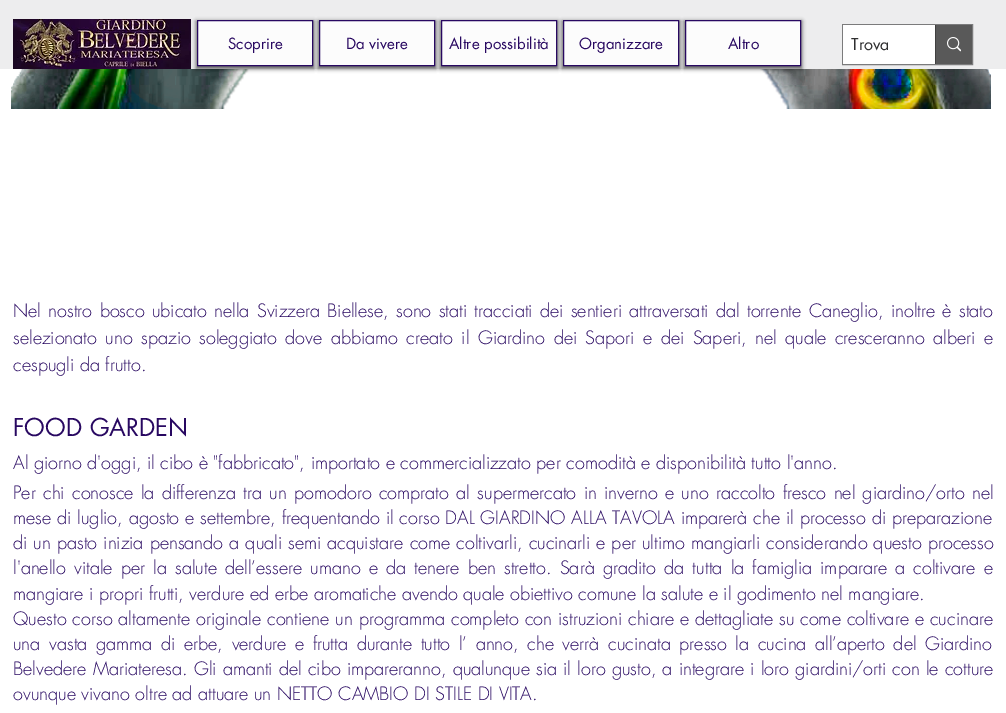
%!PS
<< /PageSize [1006 713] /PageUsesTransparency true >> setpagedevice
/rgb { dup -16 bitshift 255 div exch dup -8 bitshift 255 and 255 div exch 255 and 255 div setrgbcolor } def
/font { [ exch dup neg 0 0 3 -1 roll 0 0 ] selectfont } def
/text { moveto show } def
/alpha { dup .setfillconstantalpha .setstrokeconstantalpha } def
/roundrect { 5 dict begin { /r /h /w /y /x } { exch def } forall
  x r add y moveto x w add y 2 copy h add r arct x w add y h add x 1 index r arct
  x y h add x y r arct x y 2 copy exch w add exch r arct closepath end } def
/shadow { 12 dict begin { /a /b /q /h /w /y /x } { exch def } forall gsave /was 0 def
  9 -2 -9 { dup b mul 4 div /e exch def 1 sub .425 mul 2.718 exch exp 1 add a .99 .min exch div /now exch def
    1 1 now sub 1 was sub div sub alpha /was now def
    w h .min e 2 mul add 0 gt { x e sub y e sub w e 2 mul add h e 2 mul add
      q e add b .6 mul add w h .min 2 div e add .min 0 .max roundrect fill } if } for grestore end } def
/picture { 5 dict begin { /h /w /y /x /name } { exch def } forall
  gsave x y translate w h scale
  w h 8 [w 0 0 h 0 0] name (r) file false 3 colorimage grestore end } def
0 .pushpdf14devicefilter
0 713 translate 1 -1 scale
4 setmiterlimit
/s1 { /futura-Regular 15 font 16#280861 rgb } def
/s2 { /futura-Regular 16 font 16#2F2F30 rgb } def
/s3 { /futura-Light 18 font 16#280861 rgb } def
/s4 { /futura-Regular 24 font 16#280861 rgb } def
16#FFFFFF rgb
0 0 1006 713 rectfill
16#EDEDEE rgb
0 0 1006 69 rectfill
(pic1.raw) 13 19 178 50 picture
(pic3.raw) 11 69 980 40 picture
16#000000 rgb
196 21 118 48 0 2 0.6 shadow
16#FCFCFC rgb
197.5 20.5 moveto 312.5 20.5 lineto 312.5 65.5 lineto 197.5 65.5 lineto closepath gsave fill grestore
16#280861 rgb
stroke
s1
(Scoprire) 228 49 text
16#000000 rgb
318 21 118 48 0 2 0.6 shadow
16#FCFCFC rgb
319.5 20.5 moveto 434.5 20.5 lineto 434.5 65.5 lineto 319.5 65.5 lineto closepath gsave fill grestore
16#280861 rgb
stroke
(Da vivere) 346 49 text
16#000000 rgb
440 21 118 48 0 2 0.6 shadow
16#FCFCFC rgb
441.5 20.5 moveto 556.5 20.5 lineto 556.5 65.5 lineto 441.5 65.5 lineto closepath gsave fill grestore
16#280861 rgb
stroke
(Altre possibilità) 449 49 text
16#000000 rgb
562 21 118 48 0 2 0.6 shadow
16#FCFCFC rgb
563.5 20.5 moveto 678.5 20.5 lineto 678.5 65.5 lineto 563.5 65.5 lineto closepath gsave fill grestore
16#280861 rgb
stroke
(Organizzare) 579 49 text
16#000000 rgb
684 21 118 48 0 2 0.6 shadow
16#FCFCFC rgb
685.5 20.5 moveto 800.5 20.5 lineto 800.5 65.5 lineto 685.5 65.5 lineto closepath gsave fill grestore
16#280861 rgb
stroke
(Altro) 728 49 text
16#7B7B7C rgb
842.5 24.5 130 40 rectstroke
16#FFFFFF rgb
843 25 92 39 rectfill
s2
(Trova) 851 50 text
16#595959 rgb
936 25 36 39 rectfill
16#404040 rgb
935 25 1 39 rectfill
(pic2.raw) 947 37 14 15 picture
/futura-Light 18 font
16#280861 rgb
13 317 moveto 1.7 0 32 (Nel nostro bosco ubicato nella Svizzera Biellese, sono stati tracciati dei sentieri attraversati dal torrente Caneglio, inoltre è stato) widthshow
13 344 moveto 2.9 0 32 (selezionato uno spazio soleggiato dove abbiamo creato il) widthshow
478 344 moveto 2.9 0 32 (Giardino dei Sapori e dei Saperi, nel quale cresceranno alberi e) widthshow
(cespugli da frutto.) 13 371 text
s4
(FOOD GARDEN) 13 436 text
s3
(Al giorno d'oggi, il cibo è "fabbricato", importato e commercializzato per comodità e disponibilità tutto l'anno.) 13 469 text
13 499 moveto 1.75 0 32 (Per chi conosce la differenza tra un pomodoro comprato al supermercato in inverno e uno raccolto fresco nel giardino/orto nel) widthshow
13 524 moveto 0.4 0 32 (mese di luglio, agosto e settembre, frequentando il corso DAL GIARDINO ALLA TAVOLA imparerà che il processo di preparazione) widthshow
13 549 moveto 0.5 0 32 (di un pasto inizia pensando a quali semi acquistare come coltivarli, cucinarli e per ultimo mangiarli considerando questo processo) widthshow
13 574 moveto 2.6 0 32 (l'anello vitale per la salute dell’essere umano e da tenere ben stretto. Sarà gradito da tutta la famiglia imparare a coltivare e) widthshow
(mangiare i propri frutti, verdure ed erbe aromatiche avendo quale obiettivo comune la salute e il godimento nel mangiare.) 13 600 text
13 625 moveto 0.4 0 32 (Questo corso altamente originale contiene un programma completo con istruzioni chiare e dettagliate su come coltivare e cucinare) widthshow
13 650 moveto 3 0 32 (una vasta gamma di erbe, verdure e frutta durante tutto l’ anno, che verrà cucinata presso la cucina all’aperto del Giardino) widthshow
13 675 moveto 0.6 0 32 (Belvedere Mariateresa. Gli amanti del cibo impareranno, qualunque sia il loro gusto, a integrare i loro giardini/orti con le cotture) widthshow
(ovunque vivano oltre ad attuare un NETTO CAMBIO DI STILE DI VITA.) 13 700 text
.poppdf14devicefilter showpage
